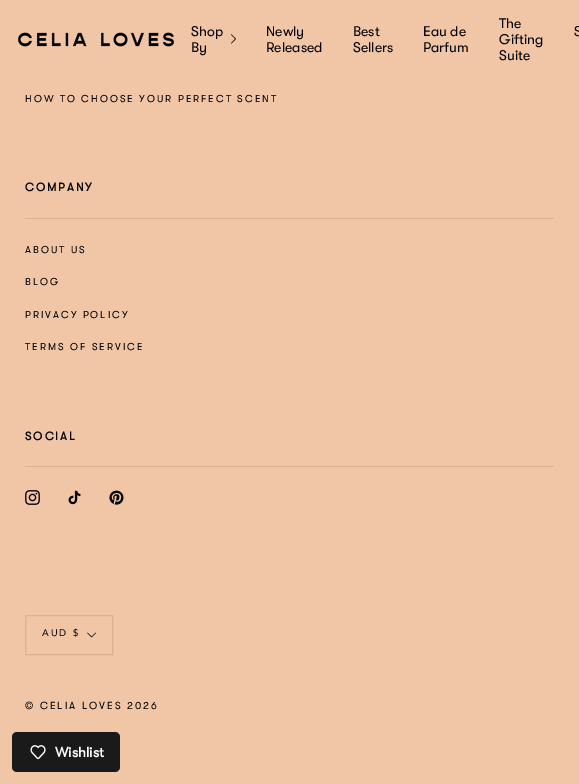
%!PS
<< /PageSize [579 784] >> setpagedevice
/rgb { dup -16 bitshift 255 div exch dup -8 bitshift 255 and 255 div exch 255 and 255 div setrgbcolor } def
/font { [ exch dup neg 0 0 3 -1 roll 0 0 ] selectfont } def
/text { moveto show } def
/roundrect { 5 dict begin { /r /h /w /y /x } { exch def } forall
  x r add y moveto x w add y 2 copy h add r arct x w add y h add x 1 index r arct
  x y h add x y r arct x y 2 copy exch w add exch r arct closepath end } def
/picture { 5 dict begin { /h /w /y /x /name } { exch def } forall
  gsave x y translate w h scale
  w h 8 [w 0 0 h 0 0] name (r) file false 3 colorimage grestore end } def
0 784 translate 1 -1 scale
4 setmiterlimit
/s1 { /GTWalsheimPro-Regular 14 font 16#000000 rgb } def
/s2 { /GTWalsheimPro-Bold 14 font 16#FFFFFF rgb } def
16#F1C6A7 rgb
0 0 579 784 rectfill
(pic1.raw) 17 32 157 15 picture
s1
(Shop) 191 36 text
(By) 191 52 text
(pic2.raw) 231 34 5 10 picture
(Newly) 266 36 text
(Released) 266 52 text
(Best) 353 36 text
(Sellers) 353 52 text
(Eau de) 423 36 text
(Parfum) 423 52 text
(The) 499 28 text
(Gifting) 499 44 text
(Suite) 499 60 text
(S) 574 36 text
/GTWalsheimPro-Regular 10 font
25 102 moveto 2 0 (HOW TO CHOOSE YOUR PERFECT SCENT) ashow
/GTWalsheimPro-Bold 11.5 font
25 191 moveto 2 0 (COMPANY) ashow
16#D9B296 rgb
25 218 529 1 rectfill
/GTWalsheimPro-Regular 10 font
16#000000 rgb
25 253 moveto 2 0 (ABOUT US) ashow
25 285 moveto 2 0 (BLOG) ashow
25 318 moveto 2 0 (PRIVACY POLICY) ashow
25 350 moveto 2 0 (TERMS OF SERVICE) ashow
/GTWalsheimPro-Bold 11.5 font
25 440 moveto 2 0 (SOCIAL) ashow
16#D9B296 rgb
25 466 529 1 rectfill
(pic3.raw) 25 490 15 15 picture
(pic4.raw) 68 490 13 15 picture
(pic5.raw) 109 490 15 15 picture
25.5 615.5 87 39 rectstroke
/Avenir-Regular 9.5 font
16#000000 rgb
42 636 moveto 2 0 (AUD $) ashow
(pic6.raw) 87 632 9 6 picture
/GTWalsheimPro-Regular 10.3 font
25 709 moveto 2 0 (© CELIA LOVES 2026) ashow
16#1A1A1A rgb
12 732 108 40 5 roundrect fill
(pic7.raw) 30 745 16 15 picture
s2
(Wishlist) 55 757 text
showpage
